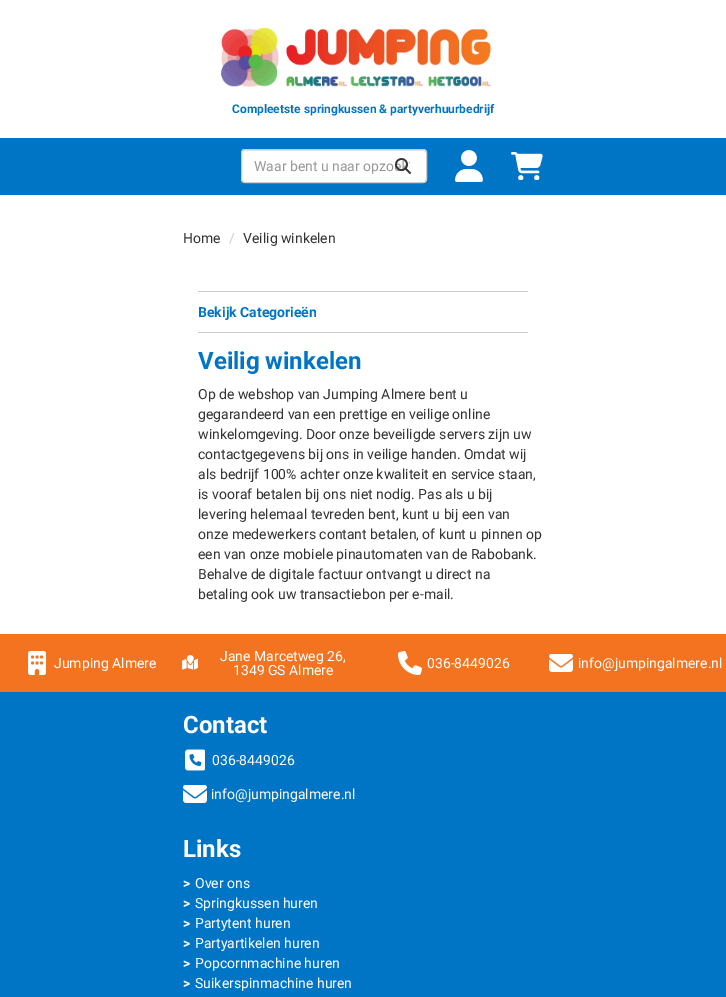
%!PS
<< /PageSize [726 997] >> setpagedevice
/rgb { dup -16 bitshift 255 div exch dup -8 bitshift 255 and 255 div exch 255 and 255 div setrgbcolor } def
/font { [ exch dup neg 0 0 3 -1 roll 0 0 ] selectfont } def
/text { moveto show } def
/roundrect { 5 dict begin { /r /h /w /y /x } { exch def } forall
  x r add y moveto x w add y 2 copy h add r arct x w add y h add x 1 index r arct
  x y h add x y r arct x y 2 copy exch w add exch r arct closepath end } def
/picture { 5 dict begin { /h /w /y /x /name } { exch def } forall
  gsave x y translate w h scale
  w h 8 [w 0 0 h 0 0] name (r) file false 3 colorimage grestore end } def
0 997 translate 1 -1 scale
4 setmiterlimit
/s1 { /Roboto-Bold 12 font 16#0075C5 rgb } def
/s2 { /Roboto-Regular 14 font 16#999999 rgb } def
/s3 { /Roboto-Regular 14 font 16#333333 rgb } def
/s4 { /Roboto-Regular 14 font 16#CCCCCC rgb } def
/s5 { /Roboto-Bold 14 font 16#0075C5 rgb } def
/s6 { /Roboto-Bold 24 font 16#0075C5 rgb } def
/s7 { /Roboto-Regular 14 font 16#FFFFFF rgb } def
/s8 { /Roboto-Bold 24 font 16#FFFFFF rgb } def
/s9 { /Roboto-Bold 14 font 16#FFFFFF rgb } def
16#FFFFFF rgb
0 0 726 997 rectfill
(pic1.raw) 221 27 270 60 picture
s1
(Compleetste springkussen & partyverhuurbedrijf) 232 113 text
0 138 726 57 rectfill
16#FFFFFF rgb
241 149 186 34 4 roundrect fill
16#ECECEC rgb
245 151 moveto 424 151 lineto 425 152 lineto 426 154 lineto 426 152 425 150 423 150 curveto 244 150 lineto 242 151 242 152 242 154 curveto 242 152 243 151 245 151 curveto closepath fill
16#CCCCCC rgb
241.5 149.5 185 33 3.5 roundrect stroke
s2
(Waar bent u naar opzo) 254 171 text
(pic2.raw) 395 158 16 16 picture
(pic3.raw) 455 150 28 32 picture
(pic4.raw) 511 152 32 28 picture
s3
(Home) 183 243 text
s4
(/) 229 243 text
s3
(Veilig winkelen) 243 243 text
16#CCCCCC rgb
198 291 330 1 rectfill
198 332 330 1 rectfill
s5
(Bekijk Categorieën) 198 317 text
s6
(Veilig winkelen) 198 369 text
s3
(Op de webshop van Jumping Almere bent u) 198 399 text
(gegarandeerd van een prettige en veilige online) 198 419 text
(winkelomgeving. Door onze beveiligde servers zijn uw) 198 439 text
(contactgegevens bij ons in veilige handen. Omdat wij) 198 459 text
(als bedrijf 100% achter onze kwaliteit en service staan,) 198 479 text
(is vooraf betalen bij ons niet nodig. Pas als u bij) 198 499 text
(levering helemaal tevreden bent, kunt u bij een van) 198 519 text
(onze medewerkers contant betalen, of kunt u pinnen op) 198 539 text
(een van onze mobiele pinautomaten van de Rabobank.) 198 559 text
(Behalve de digitale factuur ontvangt u direct na) 198 579 text
(betaling ook uw transactiebon per e-mail.) 198 599 text
16#0075C5 rgb
0 692 726 305 rectfill
16#F37321 rgb
0 634 726 58 rectfill
(pic5.raw) 28 651 18 24 picture
s7
(Jumping Almere) 54 668 text
(pic6.raw) 182 655 16 15 picture
(Jane Marcetweg 26,) 220 661 text
(1349 GS Almere) 233 675 text
(pic7.raw) 398 651 24 24 picture
(036-8449026) 427 668 text
(pic8.raw) 549 654 24 18 picture
(info@jumpingalmere.nl) 578 668 text
s8
(Contact) 183 733 text
(pic9.raw) 185 749 20 22 picture
s7
(036-8449026) 212 765 text
(pic10.raw) 183 785 24 18 picture
(info@jumpingalmere.nl) 211 799 text
s8
(Links) 183 857 text
s9
(>) 183 888 text
s7
(Over ons) 195 888 text
s9
(>) 183 908 text
s7
(Springkussen huren) 195 908 text
s9
(>) 183 928 text
s7
(Partytent huren) 195 928 text
s9
(>) 183 948 text
s7
(Partyartikelen huren) 195 948 text
s9
(>) 183 968 text
s7
(Popcornmachine huren) 195 968 text
s9
(>) 183 988 text
s7
(Suikerspinmachine huren) 195 988 text
showpage
